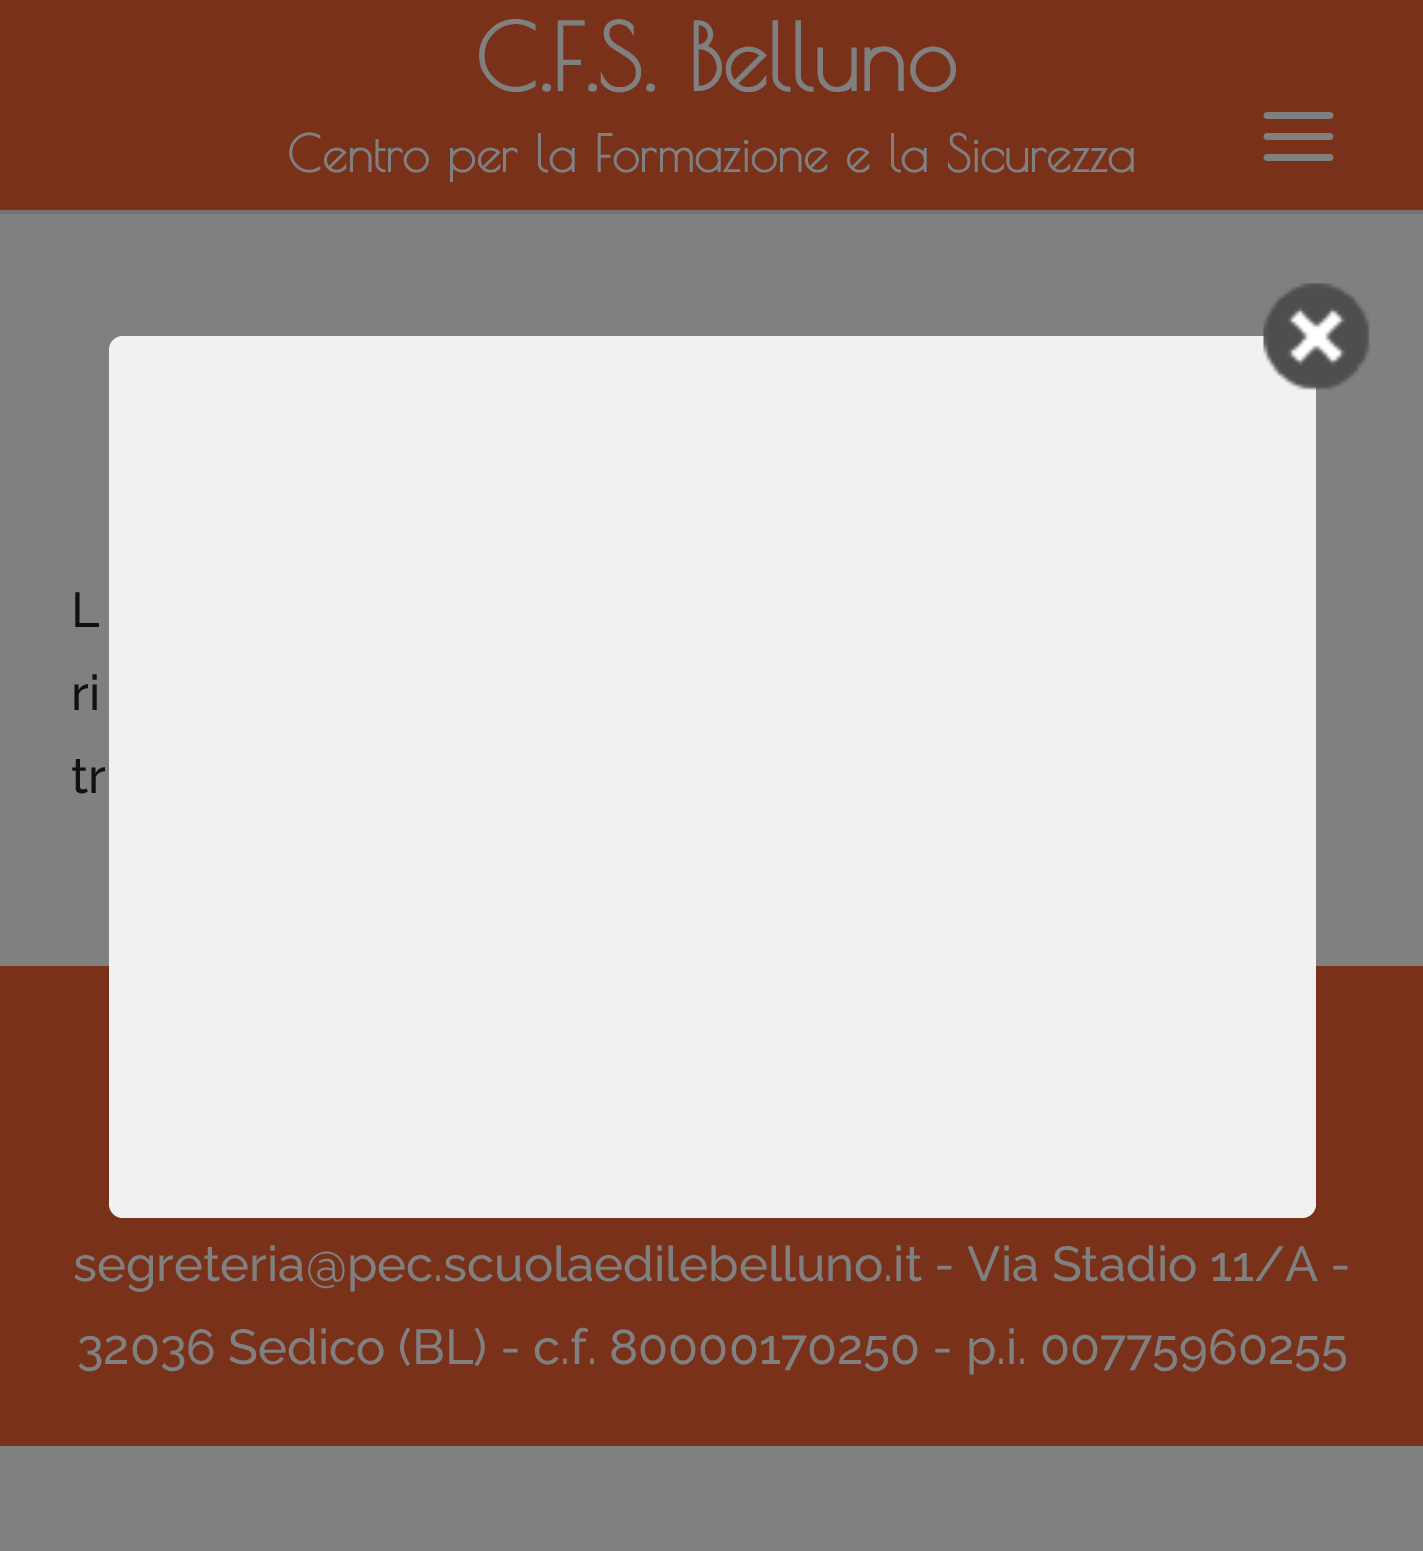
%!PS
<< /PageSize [1423 1551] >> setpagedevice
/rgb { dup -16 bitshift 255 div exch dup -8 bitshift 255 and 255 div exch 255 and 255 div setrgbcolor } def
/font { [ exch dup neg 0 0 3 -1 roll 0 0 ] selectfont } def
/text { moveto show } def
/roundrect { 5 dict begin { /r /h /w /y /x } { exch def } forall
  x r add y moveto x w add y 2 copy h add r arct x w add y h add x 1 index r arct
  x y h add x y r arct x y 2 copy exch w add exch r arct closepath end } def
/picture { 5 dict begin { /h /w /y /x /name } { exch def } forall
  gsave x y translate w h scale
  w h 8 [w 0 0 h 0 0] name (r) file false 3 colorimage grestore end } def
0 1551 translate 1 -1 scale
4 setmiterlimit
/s1 { /PoiretOne-Bold 91 font 16#808080 rgb } def
/s2 { /PoiretOne-Bold 50 font 16#808080 rgb } def
/s3 { /Raleway-Medium 49 font 16#111111 rgb } def
/s4 { /Raleway-Medium 49 font 16#808080 rgb } def
16#808080 rgb
0 0 1423 1551 rectfill
16#737373 rgb
0 210 moveto 0 214 lineto 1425 214 lineto 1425 4 lineto 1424 4 lineto 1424 210 lineto closepath fill
16#79311A rgb
0 0 1423 210 rectfill
s1
(C.F.S. Belluno) 475 91 text
s2
(Centro per la Formazione e la Sicurezza) 287 172 text
(pic1.raw) 1263 112 71 49 picture
s3
(L) 71 627 text
(ri) 71 710 text
(tr) 71 793 text
16#79311A rgb
0 966 1423 480 rectfill
s4
(segreteria@pec.scuolaedilebelluno.it - Via Stadio 11/A -) 73 1281 text
(32036 Sedico \(BL\) - c.f. 80000170250 - p.i. 00775960255) 77 1364 text
16#F0F1F2 rgb
109 336 1207 882 14 roundrect fill
(pic2.raw) 1263 283 107 107 picture
showpage
